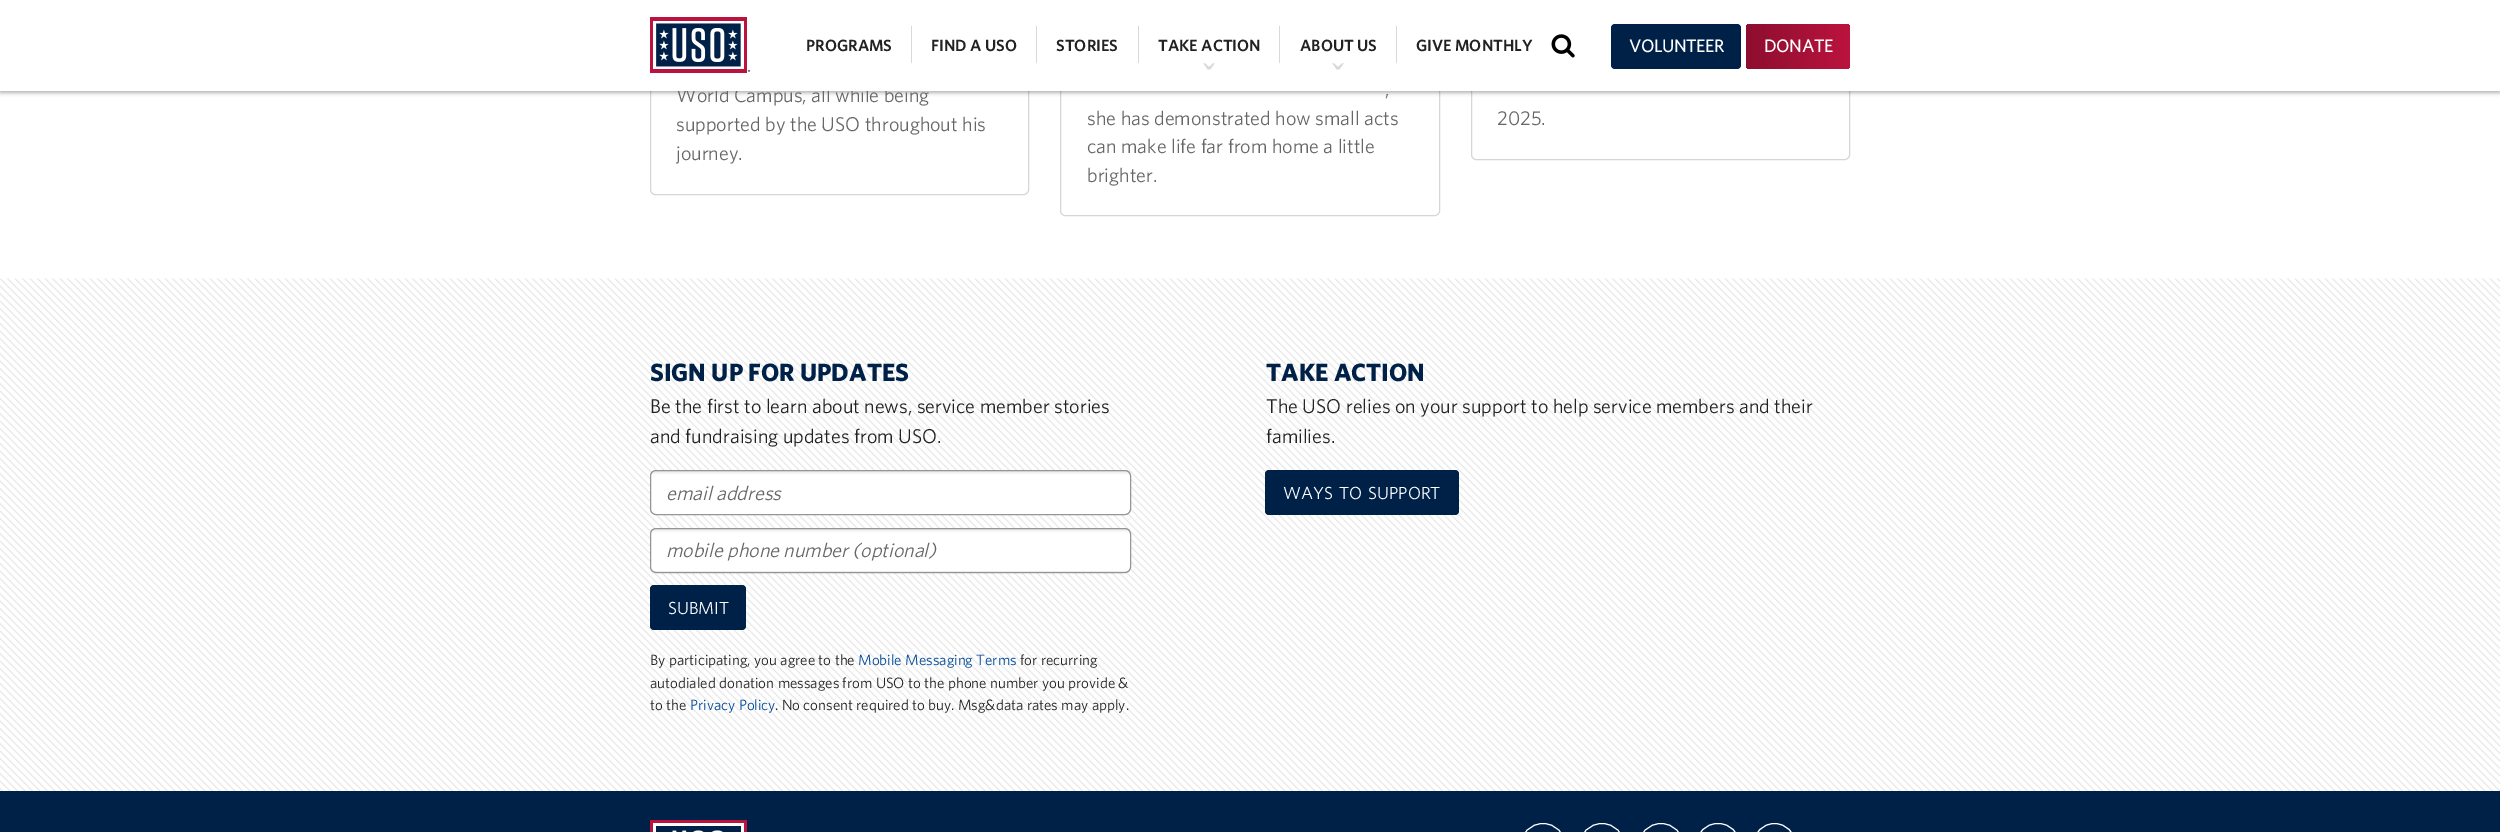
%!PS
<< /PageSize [2500 832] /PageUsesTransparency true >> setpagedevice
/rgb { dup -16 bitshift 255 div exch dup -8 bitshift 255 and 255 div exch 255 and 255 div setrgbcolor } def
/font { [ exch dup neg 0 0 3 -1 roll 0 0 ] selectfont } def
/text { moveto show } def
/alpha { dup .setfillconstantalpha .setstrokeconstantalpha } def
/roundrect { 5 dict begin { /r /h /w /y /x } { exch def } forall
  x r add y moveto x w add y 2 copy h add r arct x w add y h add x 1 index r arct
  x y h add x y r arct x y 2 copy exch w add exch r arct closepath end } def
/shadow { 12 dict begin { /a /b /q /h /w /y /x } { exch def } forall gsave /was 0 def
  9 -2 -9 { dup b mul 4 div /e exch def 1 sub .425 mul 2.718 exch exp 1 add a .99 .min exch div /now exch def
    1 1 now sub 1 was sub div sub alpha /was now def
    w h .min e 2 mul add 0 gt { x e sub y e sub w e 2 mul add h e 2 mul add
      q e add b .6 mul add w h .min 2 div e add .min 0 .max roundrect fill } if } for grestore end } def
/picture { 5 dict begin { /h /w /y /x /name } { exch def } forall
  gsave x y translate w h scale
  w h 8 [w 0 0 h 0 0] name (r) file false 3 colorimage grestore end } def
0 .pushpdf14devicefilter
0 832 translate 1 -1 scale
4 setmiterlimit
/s1 { /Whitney-Regular 20 font 16#676767 rgb } def
/s2 { /Whitney-SemiBold 16.25 font 16#222222 rgb } def
/s3 { /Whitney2-Bold 17.5 font 16#FFFFFF rgb } def
/s4 { /Whitney-Bold 25 font 16#002147 rgb } def
/s5 { /Whitney-Regular 20 font 16#222222 rgb } def
/s6 { /Whitney-Italic 20 font 16#676767 rgb } def
/s7 { /Whitney-Regular 17.5 font 16#FFFFFF rgb } def
/s8 { /Whitney-Regular 15 font 16#222222 rgb } def
/s9 { /Whitney-Regular 15 font 16#004999 rgb } def
16#FFFFFF rgb
0 0 2500 832 rectfill
16#D6D6D6 rgb
650.5 -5.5 378 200 4.5 roundrect stroke
1060.5 -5.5 379 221 4.5 roundrect stroke
1471.5 -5.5 378 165 4.5 roundrect stroke
16#000000 rgb
0 1 2500 92 0 2 0.3 shadow
s1
(World Campus, all while being) 676 102 text
16#FFFFFF rgb
0 0 2500 91 rectfill
(pic1.raw) 650 17 100 56 picture
s2
(PROGRAMS) 806 51 text
16#D9D9D9 rgb
911 26 1 37 rectfill
s2
(FIND A USO) 931 51 text
16#D9D9D9 rgb
1036 26 1 37 rectfill
s2
(STORIES) 1056 51 text
16#D9D9D9 rgb
1138 26 1 37 rectfill
s2
(TAKE ACTION) 1158 51 text
/Whitney-Regular 44 font
16#D9D9D9 rgb
gsave 1219 39 translate 180 rotate 0 0 moveto (^) show grestore
1279 26 1 37 rectfill
s2
(ABOUT US) 1300 51 text
/Whitney-Regular 44 font
16#D9D9D9 rgb
gsave 1348 39 translate 180 rotate 0 0 moveto (^) show grestore
1396 26 1 37 rectfill
s2
(GIVE MONTHLY) 1416 51 text
(pic2.raw) 1551 34 24 24 picture
16#002147 rgb
1611 24 130 45 4 roundrect fill
s3
(VOLUNTEER) 1629 52 text
gsave 1746 24 104 45 4 roundrect clip newpath
<< /ShadingType 2 /ColorSpace /DeviceRGB /Coords [1746 46 1850 46] /Extend [true true] /Function << /FunctionType 2 /Domain [0 1] /C0 [0.553 0.055 0.184] /C1 [0.733 0.075 0.243] /N 1 >> >> shfill grestore
(DONATE) 1764 52 text
s1
(supported by the USO throughout his) 676 131 text
(journey.) 676 160 text
(,) 1385 96 text
(she has demonstrated how small acts) 1087 125 text
(can make life far from home a little) 1087 153 text
(brighter.) 1087 182 text
(2025.) 1497 125 text
(pic3.raw) 0 278 2500 513 picture
s4
(SIGN UP FOR UPDATES) 650 381 text
s5
(Be the first to learn about news, service member stories) 650 413 text
(and fundraising updates from USO.) 650 443 text
gsave
650 470 481 45 6 roundrect clip newpath
gsave 650 471 moveto 1131 471 lineto 1131 514 lineto 650 514 lineto closepath clip newpath
<< /ShadingType 2 /ColorSpace /DeviceRGB /Coords [891 471 891 514] /Extend [true true] /Function << /FunctionType 3 /Domain [0 1] /Functions [<< /FunctionType 2 /Domain [0 1] /C0 [0.91 0.91 0.91] /C1 [1 1 1] /N 1 >> << /FunctionType 2 /Domain [0 1] /C0 [1 1 1] /C1 [1 1 1] /N 1 >>] /Bounds [0.09] /Encode [0 1 0 1] >> >> shfill grestore
grestore
16#959595 rgb
650.5 470.5 480 44 5.5 roundrect stroke
s6
(email address) 666 500 text
gsave
650 528 481 45 6 roundrect clip newpath
gsave 650 529 moveto 1131 529 lineto 1131 571 lineto 650 571 lineto closepath clip newpath
<< /ShadingType 2 /ColorSpace /DeviceRGB /Coords [891 529 891 571] /Extend [true true] /Function << /FunctionType 3 /Domain [0 1] /Functions [<< /FunctionType 2 /Domain [0 1] /C0 [0.91 0.91 0.91] /C1 [1 1 1] /N 1 >> << /FunctionType 2 /Domain [0 1] /C0 [1 1 1] /C1 [1 1 1] /N 1 >>] /Bounds [0.09] /Encode [0 1 0 1] >> >> shfill grestore
gsave 650 571 moveto 1131 571 lineto 1131 573 lineto 650 573 lineto closepath clip newpath
<< /ShadingType 2 /ColorSpace /DeviceRGB /Coords [891 571 891 614] /Extend [true true] /Function << /FunctionType 3 /Domain [0 1] /Functions [<< /FunctionType 2 /Domain [0 1] /C0 [0.91 0.91 0.91] /C1 [1 1 1] /N 1 >> << /FunctionType 2 /Domain [0 1] /C0 [1 1 1] /C1 [1 1 1] /N 1 >>] /Bounds [0.09] /Encode [0 1 0 1] >> >> shfill grestore
grestore
16#959595 rgb
650.5 528.5 480 44 5.5 roundrect stroke
s6
(mobile phone number \(optional\)) 666 557 text
16#002147 rgb
650 585 96 45 4 roundrect fill
s7
(SUBMIT) 668 614 text
s8
(By participating, you agree to the) 650 665 text
s9
(Mobile Messaging Terms) 858 665 text
s8
(for recurring) 1020 665 text
(autodialed donation messages from USO to the phone number you provide &) 650 688 text
(to the) 650 710 text
s9
(Privacy Policy) 690 710 text
s8
(. No consent required to buy. Msg&data rates may apply.) 775 710 text
s4
(TAKE ACTION) 1266 381 text
s5
(The USO relies on your support to help service members and their) 1266 413 text
(families.) 1266 443 text
16#002147 rgb
1265 470 194 45 4 roundrect fill
/Whitney-Regular 17.5 font
16#FFFFFF rgb
1283 499 moveto 2 0 32 (WAYS TO SUPPORT) widthshow
16#002147 rgb
0 791 2500 41 rectfill
(pic4.raw) 650 820 97 12 picture
16#FFFFFF rgb
1520.5 823.5 45 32 22.5 roundrect stroke
1579.5 823.5 45 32 22.5 roundrect stroke
1638.5 823.5 45 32 22.5 roundrect stroke
1696.5 823.5 43 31 21 roundrect stroke
1753.5 823.5 42 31 21 roundrect stroke
.poppdf14devicefilter showpage
